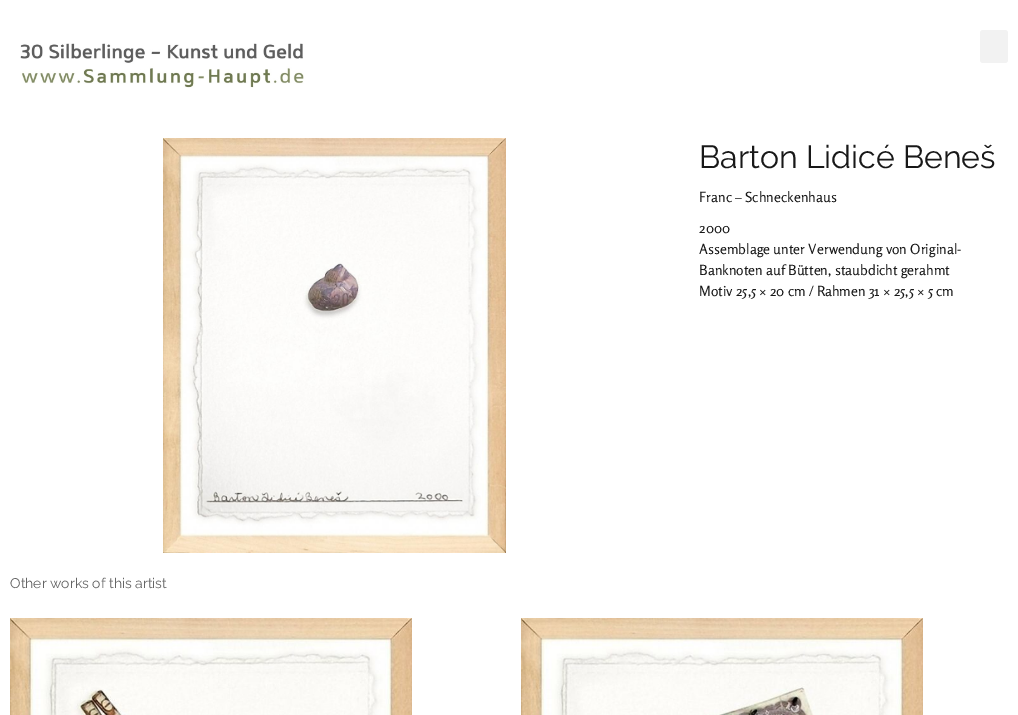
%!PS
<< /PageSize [1018 715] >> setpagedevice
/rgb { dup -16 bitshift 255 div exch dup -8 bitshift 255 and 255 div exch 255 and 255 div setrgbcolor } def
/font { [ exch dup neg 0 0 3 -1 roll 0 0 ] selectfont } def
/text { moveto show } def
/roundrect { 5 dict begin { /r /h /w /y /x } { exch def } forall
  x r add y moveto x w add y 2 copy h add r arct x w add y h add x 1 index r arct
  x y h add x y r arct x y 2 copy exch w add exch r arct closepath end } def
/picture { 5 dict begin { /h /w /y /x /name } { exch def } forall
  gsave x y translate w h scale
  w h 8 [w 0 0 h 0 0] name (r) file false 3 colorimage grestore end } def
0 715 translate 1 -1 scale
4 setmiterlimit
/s1 { /Raleway-Regular 32 font 16#181818 rgb } def
/s2 { /Rosario-Regular 14 font 16#181818 rgb } def
/s3 { /Raleway-Regular 14 font 16#656565 rgb } def
16#FFFFFF rgb
0 0 1018 715 rectfill
(pic1.raw) 20 43 284 45 picture
16#F2F2F2 rgb
980 30 28 33 3 roundrect fill
(pic2.raw) 163 138 343 415 picture
s1
(Barton Lidicé Beneš) 699 168 text
s2
(Franc – Schneckenhaus) 699 202 text
(2000) 699 233 text
(Assemblage unter Verwendung von Original-) 699 254 text
(Banknoten auf Bütten, staubdicht gerahmt) 699 275 text
(Motiv 25,5 × 20 cm / Rahmen 31 × 25,5 × 5 cm) 699 296 text
s3
(Other works of this artist) 10 588 text
(pic3.raw) 10 618 402 97 picture
(pic4.raw) 521 618 402 97 picture
showpage
